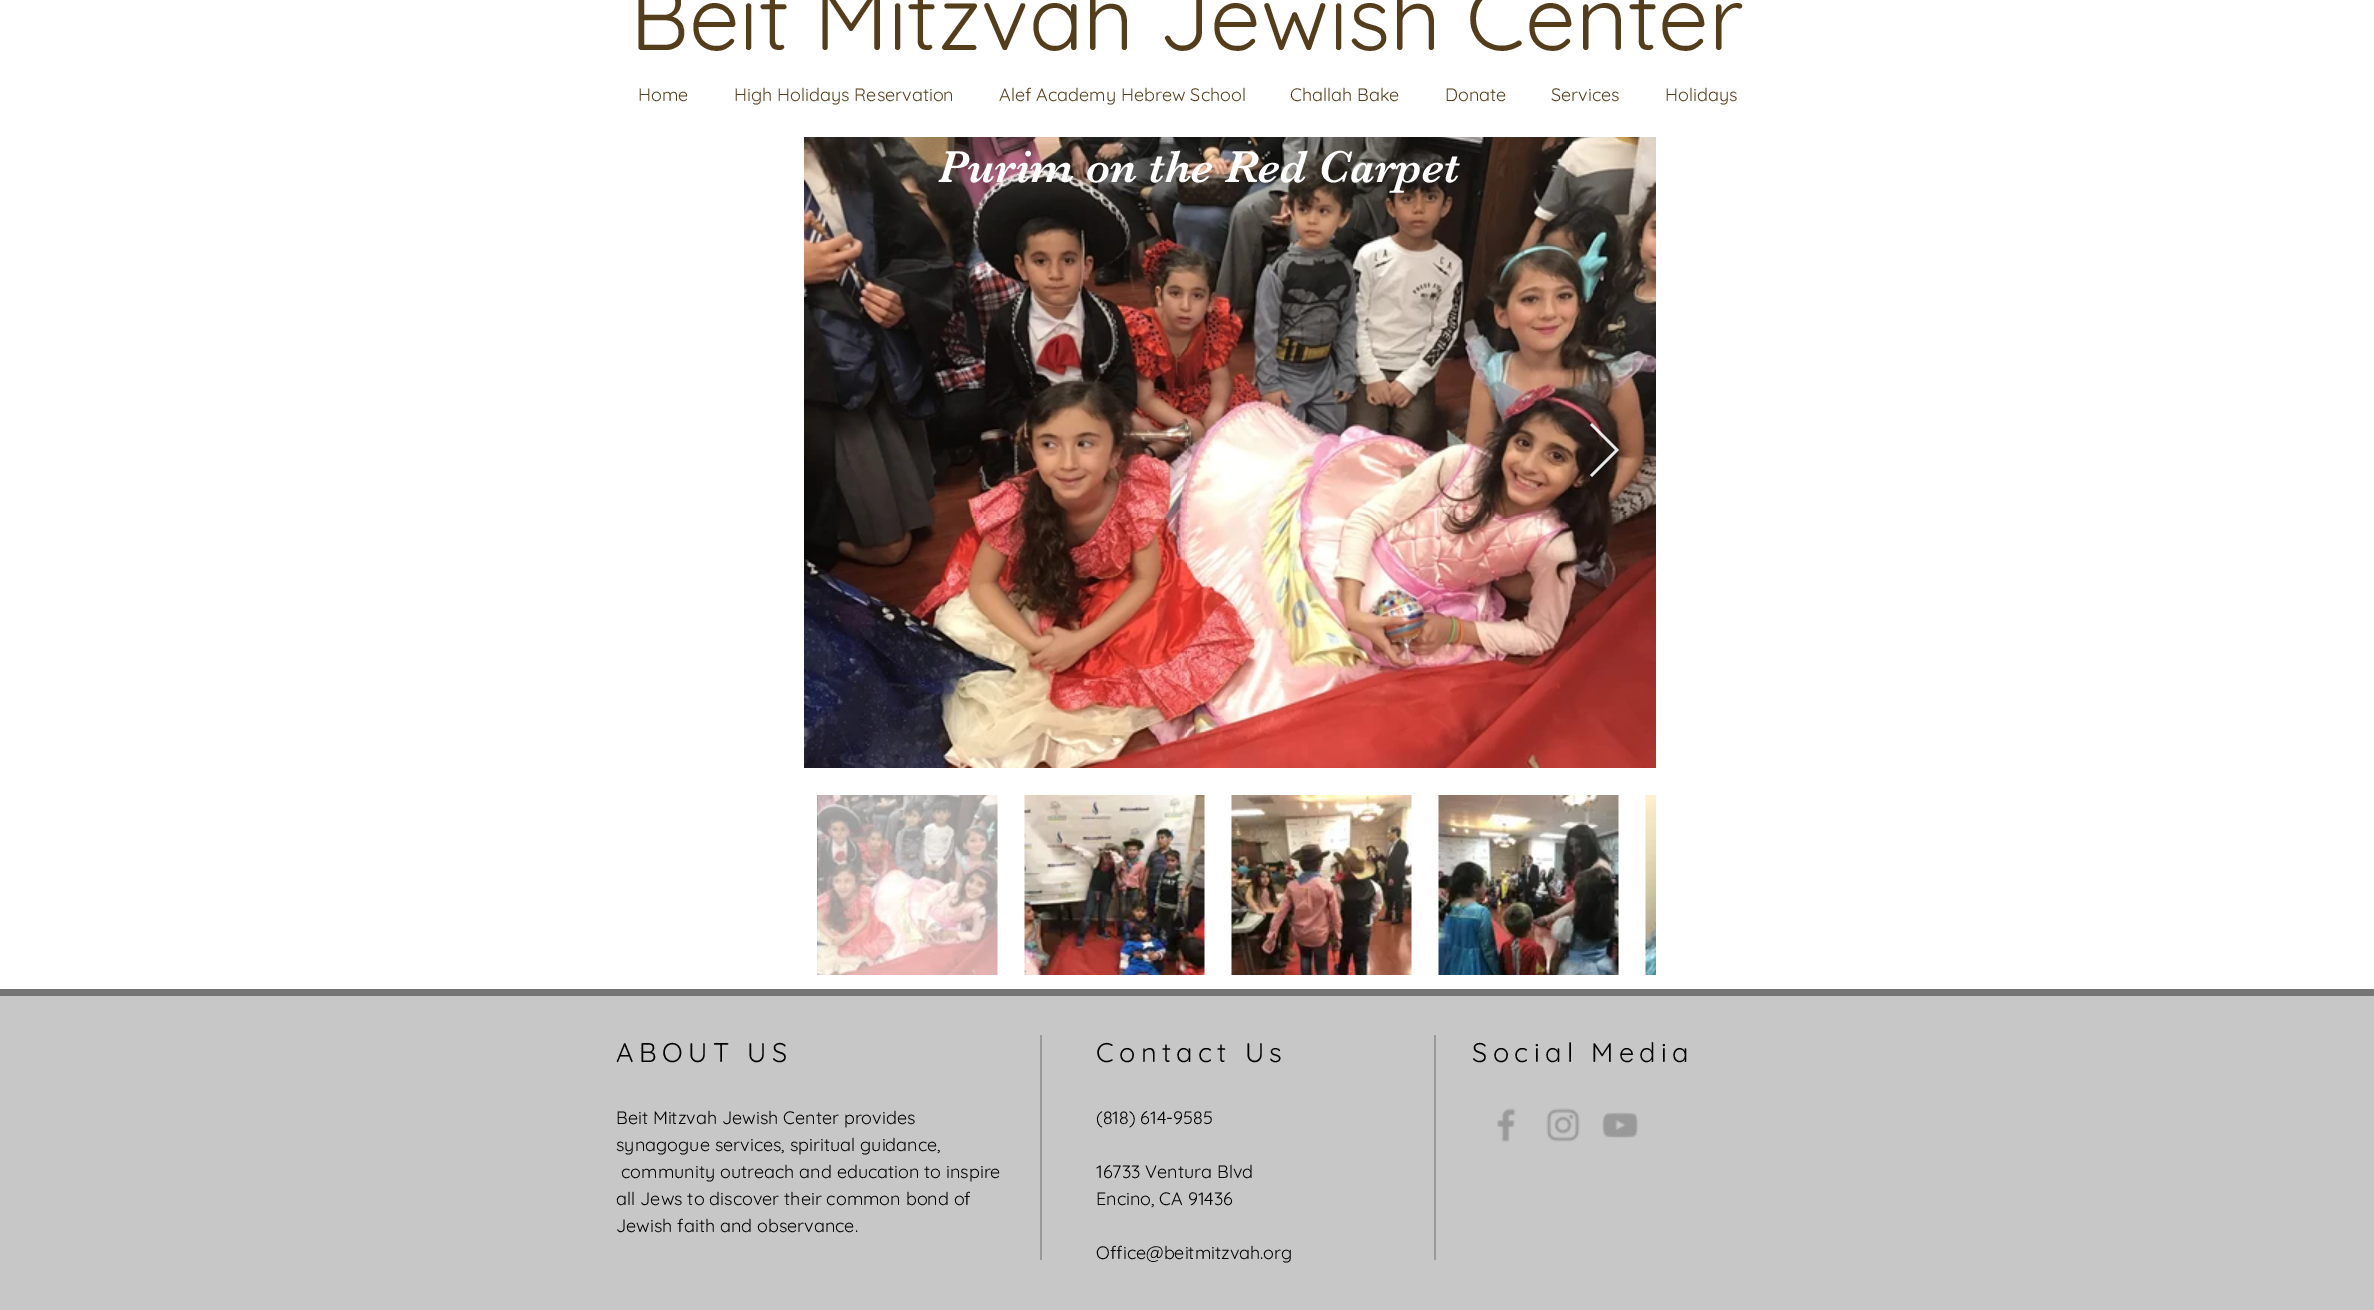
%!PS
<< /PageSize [2374 1310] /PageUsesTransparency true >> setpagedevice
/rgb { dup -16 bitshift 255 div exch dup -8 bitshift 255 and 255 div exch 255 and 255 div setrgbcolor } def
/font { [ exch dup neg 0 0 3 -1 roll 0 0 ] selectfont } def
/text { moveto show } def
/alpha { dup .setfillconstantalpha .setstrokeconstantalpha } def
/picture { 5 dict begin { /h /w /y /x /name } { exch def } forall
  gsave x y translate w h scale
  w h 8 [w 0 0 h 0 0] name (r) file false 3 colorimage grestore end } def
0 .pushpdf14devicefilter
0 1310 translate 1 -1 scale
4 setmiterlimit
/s1 { /Quicksand-Regular 90 font 16#543D1B rgb } def
/s2 { /Quicksand-Regular 18 font 16#543D1B rgb } def
/s3 { /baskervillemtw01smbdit-Regular 46.5 font 16#FFFFFF rgb } def
/s4 { /Quicksand-Regular 18 font 16#000000 rgb } def
16#FFFFFF rgb
0 0 2374 1310 rectfill
s1
(Beit Mitzvah Jewish Center) 630 50 text
s2
(Home) 638 101 text
(High Holidays Reservation) 734 101 text
(Alef Academy Hebrew School) 999 101 text
(Challah Bake) 1290 101 text
(Donate) 1445 101 text
(Services) 1551 101 text
(Holidays) 1665 101 text
(pic1.raw) 804 137 852 631 picture
0.9 alpha
16#FFFFFF rgb
1590 425 moveto 1592 423 lineto 1619 450 lineto 1592 477 lineto 1590 475 lineto 1615 450 lineto closepath fill
1 alpha
(pic2.raw) 817 795 181 180 picture
(pic3.raw) 1024 795 181 180 picture
(pic4.raw) 1231 795 181 180 picture
(pic5.raw) 1438 795 181 180 picture
(pic6.raw) 1645 795 11 180 picture
s3
(Purim on the Red Carpet) 938 182 text
16#C7C7C7 rgb
0 996 2374 314 rectfill
16#757575 rgb
0 989 2374 7 rectfill
/Quicksand-Regular 27 font
16#000000 rgb
616 1062 moveto 5.4 0 (ABOUT US) ashow
16#999999 rgb
1040 1035 2 225 rectfill
16#000000 rgb
1096 1062 moveto 5.4 0 (Contact Us) ashow
16#999999 rgb
1434 1035 2 225 rectfill
16#000000 rgb
1472 1062 moveto 5.4 0 (Social Media) ashow
s4
(Beit Mitzvah Jewish Center provides) 616 1124 text
(synagogue services, spiritual guidance,) 616 1151 text
(community outreach and education to inspire) 621 1178 text
(all Jews to discover their common bond of) 616 1205 text
(Jewish faith and observance.) 616 1232 text
(\(818\) 614-9585) 1096 1124 text
(16733 Ventura Blvd) 1096 1178 text
(Encino, CA 91436) 1096 1205 text
(Office@beitmitzvah.org) 1096 1259 text
(pic7.raw) 1497 1108 19 34 picture
(pic8.raw) 1546 1108 34 34 picture
(pic9.raw) 1602 1112 37 26 picture
.poppdf14devicefilter showpage
